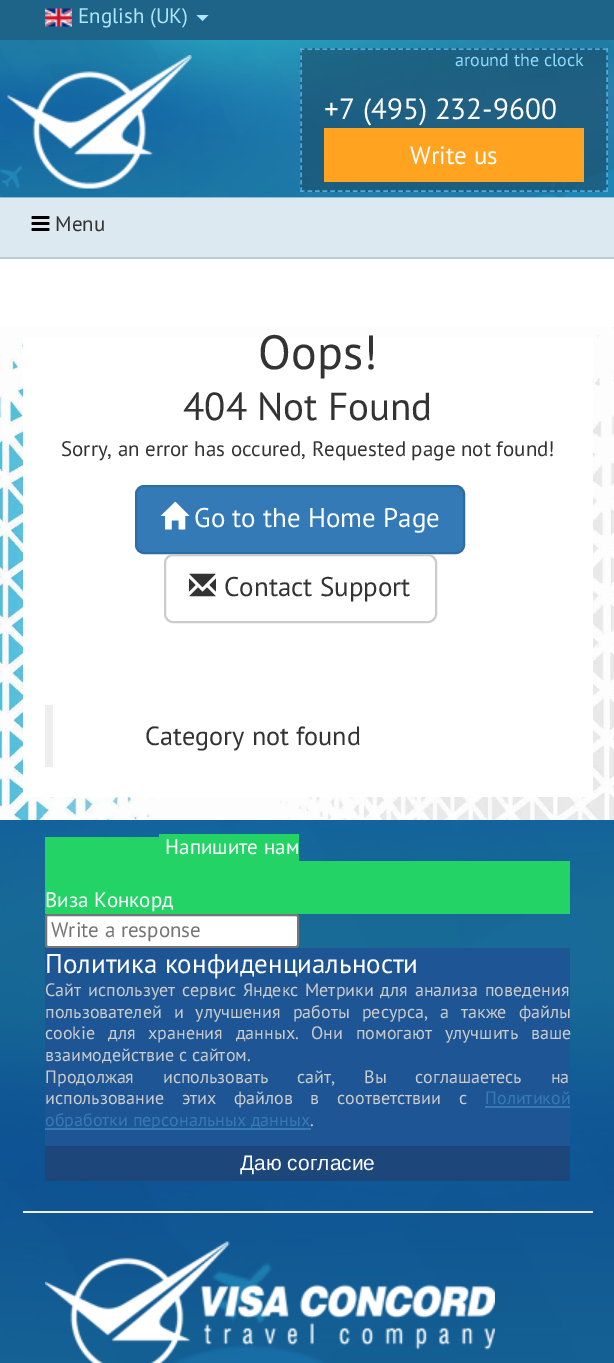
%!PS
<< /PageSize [614 1363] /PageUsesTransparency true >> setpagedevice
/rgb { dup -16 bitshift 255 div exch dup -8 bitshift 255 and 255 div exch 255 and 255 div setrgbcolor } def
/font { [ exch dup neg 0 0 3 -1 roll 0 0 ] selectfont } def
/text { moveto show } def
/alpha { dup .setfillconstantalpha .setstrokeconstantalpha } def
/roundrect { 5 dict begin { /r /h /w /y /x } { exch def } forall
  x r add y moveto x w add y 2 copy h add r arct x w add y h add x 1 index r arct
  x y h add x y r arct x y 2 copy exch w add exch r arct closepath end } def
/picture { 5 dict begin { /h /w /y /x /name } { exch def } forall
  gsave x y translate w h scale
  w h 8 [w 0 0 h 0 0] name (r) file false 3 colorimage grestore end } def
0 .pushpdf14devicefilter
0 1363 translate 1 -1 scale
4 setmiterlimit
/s1 { /PTSans-Regular 21 font 16#B0E6FF rgb } def
/s2 { /PTSans-Regular 18 font 16#8DDCFF rgb } def
/s3 { /PTSans-Regular 29.25 font 16#FFFFFF rgb } def
/s4 { /PTSans-Regular 25 font 16#FFFFFF rgb } def
/s5 { /PTSans-Regular 21 font 16#333333 rgb } def
/s6 { /PTSans-Regular 48 font 16#333333 rgb } def
/s7 { /PTSans-Regular 39 font 16#333333 rgb } def
/s8 { /PTSans-Regular 27 font 16#FFFFFF rgb } def
/s9 { /PTSans-Regular 27 font 16#333333 rgb } def
/s10 { /PTSans-Regular 26.25 font 16#333333 rgb } def
/s11 { /PTSans-Regular 21 font 16#FFFFFF rgb } def
/s12 { /PTSans-Regular 21 font 16#757575 rgb } def
/s13 { /PTSans-Regular 18 font 16#CCCCCC rgb } def
/s14 { /PTSans-Regular 18 font 16#337AB7 rgb } def
/s15 { /LiberationSans-Regular 21 font 16#FFFFFF rgb } def
16#FFFFFF rgb
0 0 614 1363 rectfill
(pic1.raw) 0 327 614 493 picture
16#1E6388 rgb
0 0 614 40 rectfill
(pic2.raw) 45 8 27 19 picture
s1
(English \(UK\)) 78 23 text
196.5 15 moveto 208.5 15 lineto 202.5 21 lineto closepath fill
(pic3.raw) 0 40 614 158 picture
(pic4.raw) 7 55 185 134 picture
0.6 alpha
16#194A65 rgb
300 48 308 144 rectfill
1 alpha
16#4CAADC rgb
1.5 setlinewidth
[4.5 3.07] 0 setdash
300 49 moveto 607.5 49 lineto stroke
[4.5 2.83] 0 setdash
607 48 moveto 607 192 lineto stroke
[4.5 3.07] 0 setdash
300 191 moveto 607.5 191 lineto stroke
[4.5 2.83] 0 setdash
301 48 moveto 301 192 lineto stroke
s2
(around the clock) 455 66 text
s3
(+7 \(495\) 232-9600) 324 119 text
16#FFA321 rgb
324 128 260 54 rectfill
s4
(Write us) 410 164 text
16#DDE9F0 rgb
0 198 614 59 rectfill
16#B9CDD9 rgb
0 257 614 2 rectfill
(pic5.raw) 31 216 19 15 picture
s5
(Menu) 55 231 text
16#FFFFFF rgb
23 337 570 460 rectfill
s6
(Oops!) 258 369 text
s7
(404 Not Found) 183 420 text
s5
(Sorry, an error has occured, Requested page not found!) 61 456 text
16#337AB7 rgb
136 486 328 67 8 roundrect gsave fill grestore
16#2E6DA4 rgb
2 setlinewidth
[] 0 setdash
stroke
(pic6.raw) 160 501 30 29 picture
s8
(Go to the Home Page) 194 527 text
16#CCCCCC rgb
165 555 271 67 8 roundrect stroke
(pic7.raw) 189 573 27 24 picture
s9
(Contact Support) 224 596 text
16#EEEEEE rgb
45 705 8 62 rectfill
s10
(Category not found) 145 745 text
(pic8.raw) 0 820 614 543 picture
16#23D366 rgb
159 834 140 27 rectfill
s11
(Напишите нам) 165 854 text
16#23D366 rgb
45 837 114 24 rectfill
45 861 525 53 rectfill
s11
(Виза Конкорд) 45 907 text
46 915 252 32 2 roundrect gsave fill grestore
16#767676 rgb
stroke
s12
(Write a response) 51 937 text
16#1E5695 rgb
45 948 525 198 rectfill
s8
(Политика конфиденциальности) 45 973 text
/PTSans-Regular 18 font
16#CCCCCC rgb
45 996 moveto 2 0 32 (Сайт использует сервис Яндекс Метрики для анализа поведения) widthshow
45 1018 moveto 7.25 0 32 (пользователей и улучшения работы ресурса, а также файлы) widthshow
45 1039 moveto 8 0 32 (cookie для хранения данных.) widthshow
311 1039 moveto 8 0 32 (Они помогают улучшить ваше) widthshow
(взаимодействие с сайтом.) 45 1061 text
45 1083 moveto 24 0 32 (Продолжая использовать сайт, Вы соглашаетесь на) widthshow
45 1104 moveto 13 0 32 (использование этих файлов в соответствии с) widthshow
s14
(Политикой) 485 1104 text
485 1106 85 2 rectfill
45 1128 266 2 rectfill
(обработки персональных данных) 45 1126 text
s13
(.) 310 1126 text
16#1D467A rgb
45 1146 525 35 rectfill
s15
(Даю согласие) 240 1170 text
16#EEEEEE rgb
23 1211 570 2 rectfill
(pic9.raw) 45 1241 450 122 picture
.poppdf14devicefilter showpage
